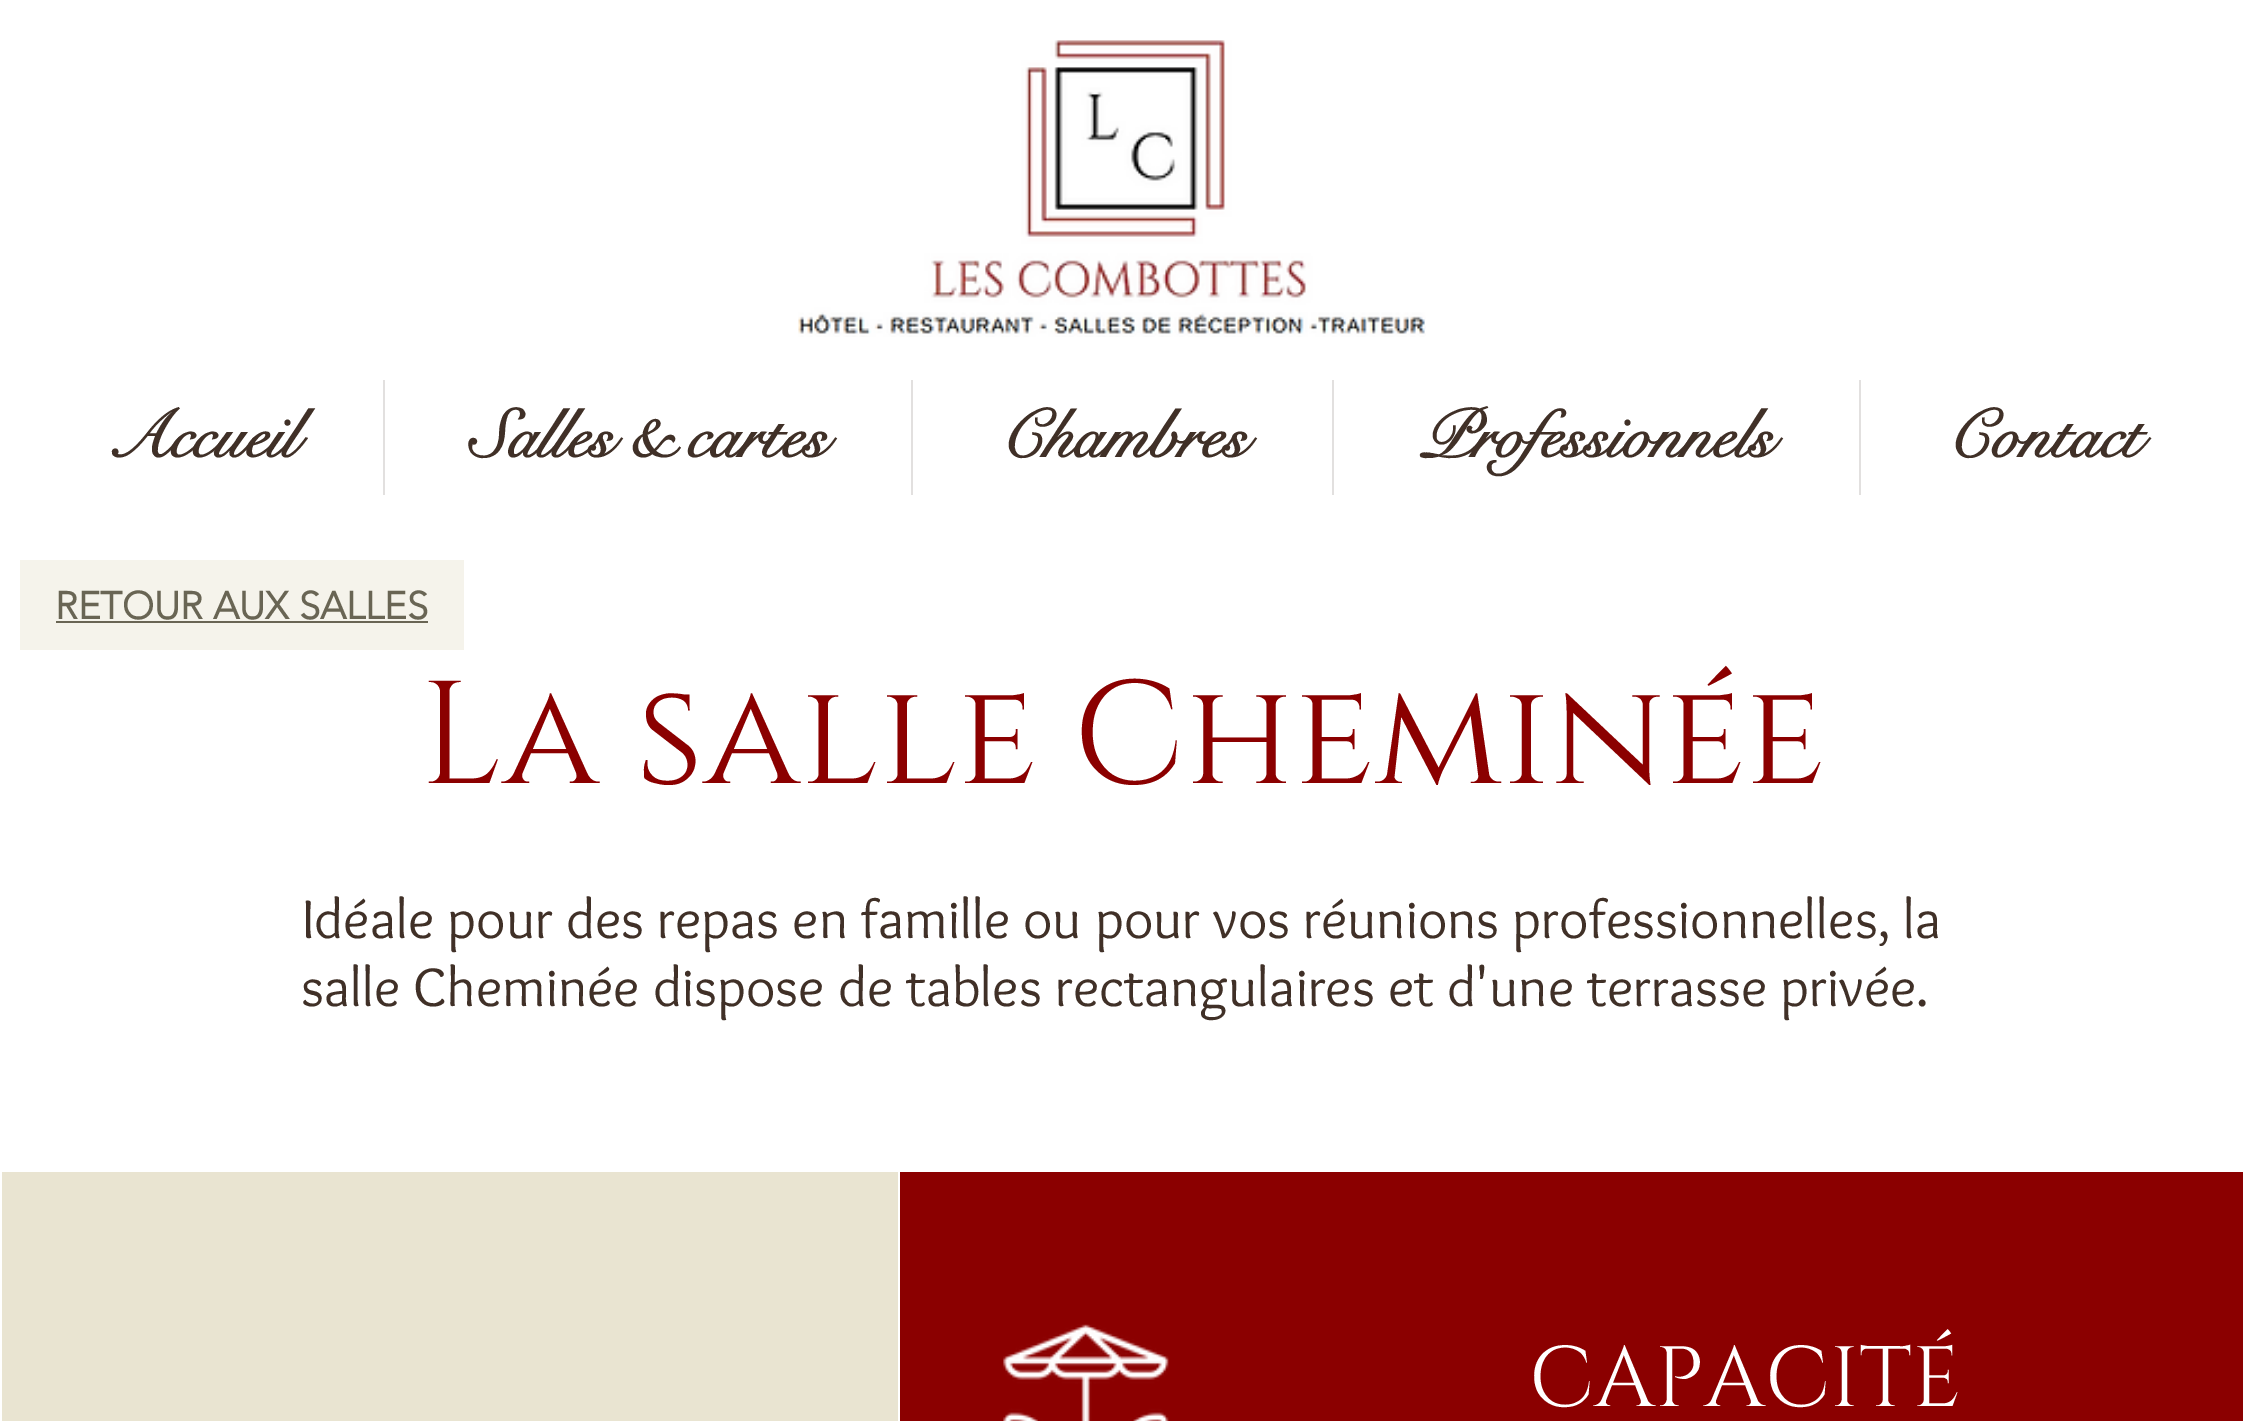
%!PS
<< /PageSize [2245 1421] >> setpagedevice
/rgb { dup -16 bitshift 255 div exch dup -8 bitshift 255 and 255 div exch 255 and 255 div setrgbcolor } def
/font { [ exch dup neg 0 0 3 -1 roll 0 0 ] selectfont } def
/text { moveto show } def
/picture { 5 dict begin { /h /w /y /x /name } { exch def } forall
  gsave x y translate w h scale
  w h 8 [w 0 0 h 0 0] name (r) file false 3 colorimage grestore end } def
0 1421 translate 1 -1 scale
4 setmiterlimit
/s1 { /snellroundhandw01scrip-Bold 67.5 font 16#403027 rgb } def
/s2 { /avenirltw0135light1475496-Bold 38.25 font 16#696554 rgb } def
/s3 { /Cinzel-Regular 146.25 font 16#8B0000 rgb } def
/s4 { /Overlock-Regular 56.25 font 16#403027 rgb } def
/s5 { /Cinzel-Regular 85.5 font 16#FFFFFF rgb } def
16#FFFFFF rgb
0 0 2245 1421 rectfill
(pic1.raw) 798 40 628 297 picture
s1
(Accueil) 106 457 text
16#E2E0DF rgb
383 380 2 115 rectfill
s1
(Salles & cartes) 470 457 text
16#E2E0DF rgb
911 380 2 115 rectfill
s1
(Chambres) 999 457 text
16#E2E0DF rgb
1332 380 2 115 rectfill
s1
(Professionnels) 1420 457 text
16#E2E0DF rgb
1859 380 2 115 rectfill
s1
(Contact) 1946 457 text
16#F5F3EB rgb
20 560 444 90 rectfill
s2
(RETOUR AUX SALLES) 55 619 text
56 621 372 2 rectfill
s3
(La salle Cheminée) 420 783 text
s4
(Idéale pour des repas en famille ou pour vos réunions professionnelles, la) 302 938 text
(salle Cheminée dispose de tables rectangulaires et d'une terrasse privée.) 301 1006 text
16#E9E4D1 rgb
2 1172 896 249 rectfill
16#8B0000 rgb
900 1172 1343 249 rectfill
(pic2.raw) 1003 1324 166 97 picture
s5
(CAPACITÉ) 1529 1406 text
showpage
